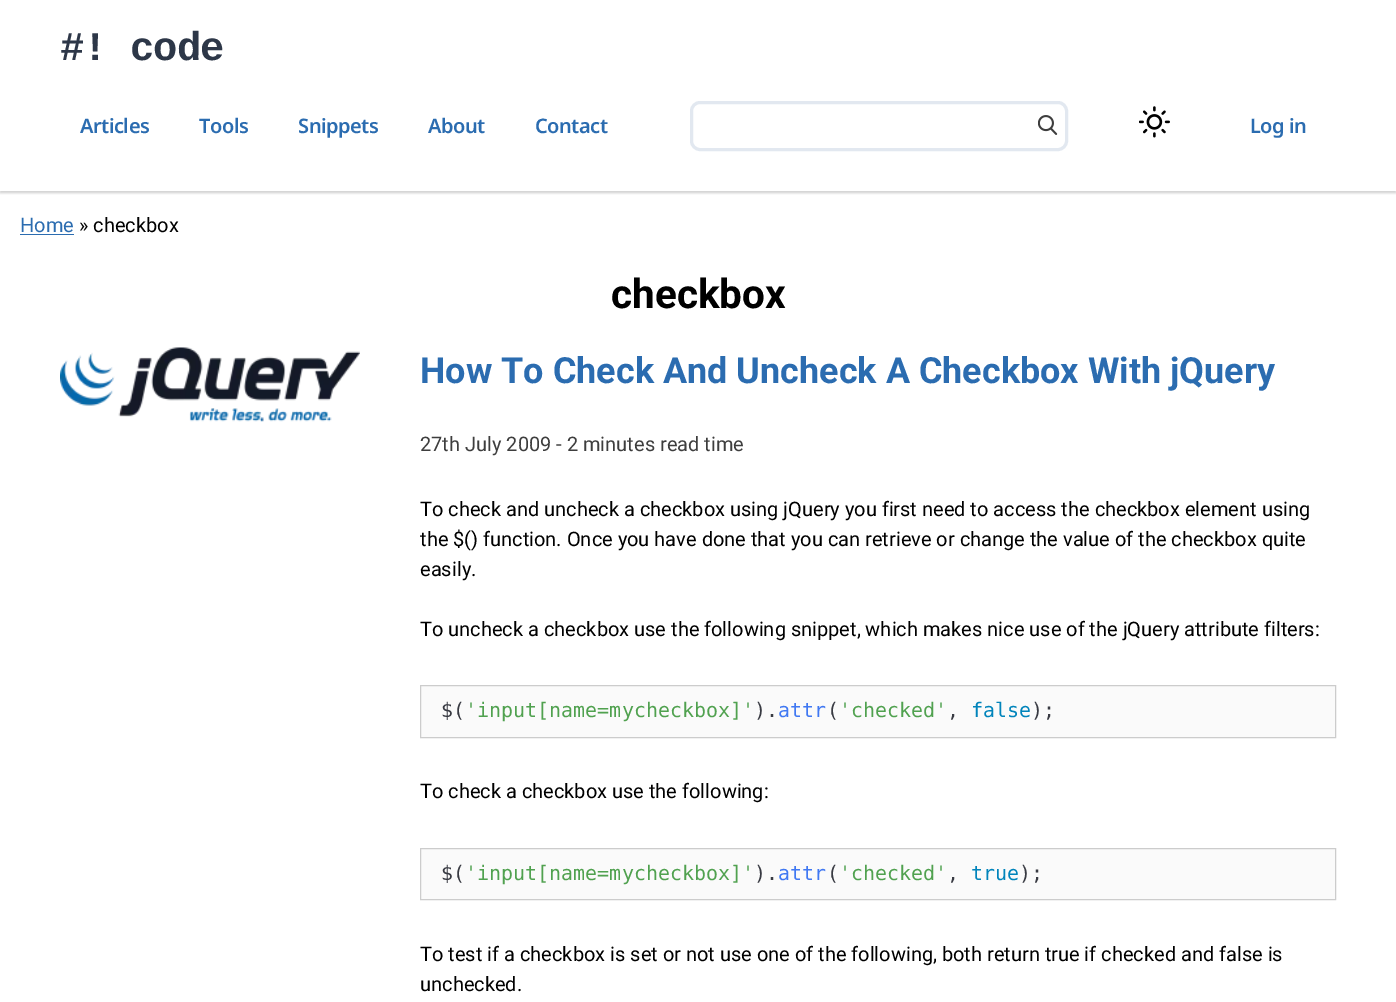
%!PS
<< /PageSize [1396 1002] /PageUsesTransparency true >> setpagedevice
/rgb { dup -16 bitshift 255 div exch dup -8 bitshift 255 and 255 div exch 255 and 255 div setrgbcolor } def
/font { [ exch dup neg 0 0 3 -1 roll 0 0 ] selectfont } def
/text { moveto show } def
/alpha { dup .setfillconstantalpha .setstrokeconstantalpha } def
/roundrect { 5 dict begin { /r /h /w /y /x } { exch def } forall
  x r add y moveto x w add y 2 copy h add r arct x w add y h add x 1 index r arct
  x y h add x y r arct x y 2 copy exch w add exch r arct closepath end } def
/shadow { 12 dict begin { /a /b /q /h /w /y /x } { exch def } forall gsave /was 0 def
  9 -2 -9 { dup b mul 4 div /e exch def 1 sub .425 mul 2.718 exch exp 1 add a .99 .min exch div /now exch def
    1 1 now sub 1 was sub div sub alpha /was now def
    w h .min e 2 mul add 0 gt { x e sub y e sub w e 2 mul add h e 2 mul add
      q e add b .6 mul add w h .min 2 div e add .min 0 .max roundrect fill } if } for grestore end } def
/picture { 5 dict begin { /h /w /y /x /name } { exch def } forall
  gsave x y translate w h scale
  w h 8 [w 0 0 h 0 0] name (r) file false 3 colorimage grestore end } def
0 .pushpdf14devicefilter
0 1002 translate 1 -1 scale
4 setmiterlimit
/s1 { /Roboto-Regular 20 font 16#2B6CB0 rgb } def
/s2 { /Roboto-Regular 20 font 16#000000 rgb } def
/s3 { /Roboto-Bold 40.5 font 16#000000 rgb } def
/s4 { /Roboto-Bold 36 font 16#2B6CB0 rgb } def
/s5 { /Roboto-Regular 20 font 16#3E3E3E rgb } def
/s6 { /DejaVuSansMono-Regular 20 font 16#383A42 rgb } def
/s7 { /DejaVuSansMono-Regular 20 font 16#50A14F rgb } def
/s8 { /DejaVuSansMono-Regular 20 font 16#4078F2 rgb } def
/s9 { /DejaVuSansMono-Regular 20 font 16#0184BB rgb } def
16#FFFFFF rgb
0 0 1396 1002 rectfill
gsave
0 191 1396 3 rectclip
16#000000 rgb
0 1 1396 192 0 1 0.1 shadow
grestore
gsave
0 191 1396 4 rectclip
16#000000 rgb
0 1 1396 192 0 2 0.1 shadow
grestore
/LiberationMono-Bold 40.5 font
16#2D3748 rgb
60 60 moveto -1 0 (#! code) ashow
/NotoSans-SemiBold 20 font
16#2B6CB0 rgb
80 133 moveto -0.5 0 (Articles) ashow
199 133 moveto -0.5 0 (Tools) ashow
298 133 moveto -0.5 0 (Snippets) ashow
428 133 moveto -0.5 0 (About) ashow
535 133 moveto -0.5 0 (Contact) ashow
16#E2E8F0 rgb
3 setlinewidth
691.5 102.5 375 47 8.5 roundrect stroke
(pic1.raw) 1038 115 20 20 picture
(pic2.raw) 1139 106 31 32 picture
16#2B6CB0 rgb
1250 133 moveto -0.5 0 (Log in) ashow
s1
(Home) 20 232 text
20 234 54 1 rectfill
s2
(» checkbox) 79 232 text
s3
(checkbox) 611 308 text
(pic3.raw) 60 347 300 75 picture
s4
(How To Check And Uncheck A Checkbox With jQuery) 420 383 text
s5
(27th July 2009 - 2 minutes read time) 420 451 text
s2
(To check and uncheck a checkbox using jQuery you first need to access the checkbox element using) 420 516 text
(the $\(\) function. Once you have done that you can retrieve or change the value of the checkbox quite) 420 546 text
(easily.) 420 576 text
(To uncheck a checkbox use the following snippet, which makes nice use of the jQuery attribute filters:) 420 636 text
16#FAFAFA rgb
420.5 685.5 moveto 1335.5 685.5 lineto 1335.5 737.5 lineto 420.5 737.5 lineto closepath gsave fill grestore
16#CCCCCC rgb
1 setlinewidth
stroke
s6
($\() 441 717 text
s7
('input[name=mycheckbox]') 465 717 text
s6
(\).) 754 717 text
s8
(attr) 778 717 text
s6
(\() 827 717 text
s7
('checked') 839 717 text
s6
(,) 947 717 text
s9
(false) 971 717 text
s6
(\);) 1031 717 text
s2
(To check a checkbox use the following:) 420 798 text
16#FAFAFA rgb
420.5 848.5 moveto 1335.5 848.5 lineto 1335.5 899.5 lineto 420.5 899.5 lineto closepath gsave fill grestore
16#CCCCCC rgb
stroke
s6
($\() 441 880 text
s7
('input[name=mycheckbox]') 465 880 text
s6
(\).) 754 880 text
s8
(attr) 778 880 text
s6
(\() 827 880 text
s7
('checked') 839 880 text
s6
(,) 947 880 text
s9
(true) 971 880 text
s6
(\);) 1019 880 text
s2
(To test if a checkbox is set or not use one of the following, both return true if checked and false is) 420 961 text
(unchecked.) 420 991 text
.poppdf14devicefilter showpage
